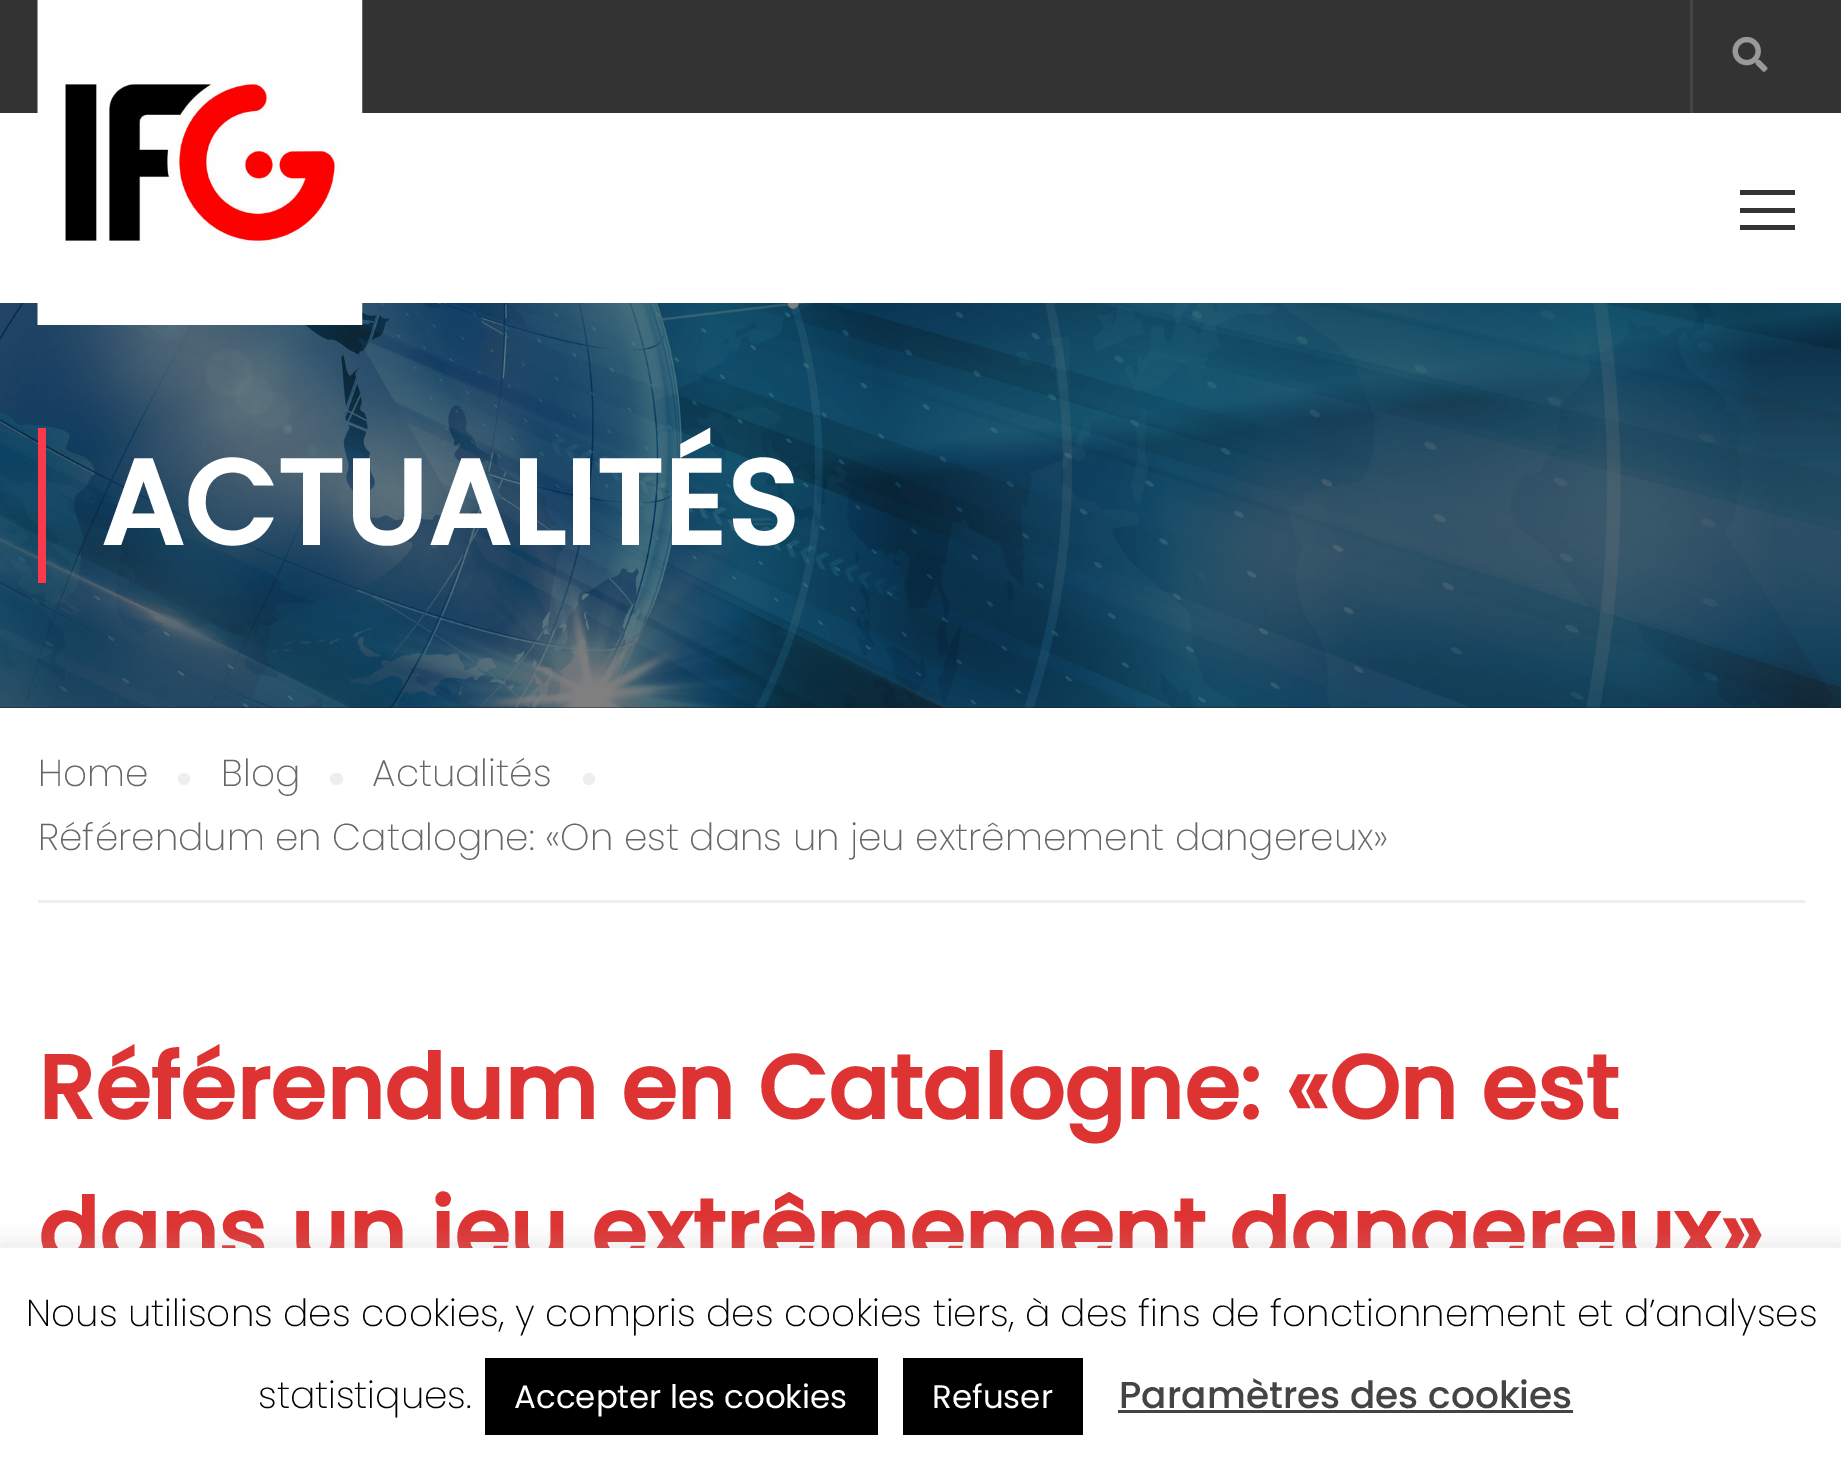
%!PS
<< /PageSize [1841 1476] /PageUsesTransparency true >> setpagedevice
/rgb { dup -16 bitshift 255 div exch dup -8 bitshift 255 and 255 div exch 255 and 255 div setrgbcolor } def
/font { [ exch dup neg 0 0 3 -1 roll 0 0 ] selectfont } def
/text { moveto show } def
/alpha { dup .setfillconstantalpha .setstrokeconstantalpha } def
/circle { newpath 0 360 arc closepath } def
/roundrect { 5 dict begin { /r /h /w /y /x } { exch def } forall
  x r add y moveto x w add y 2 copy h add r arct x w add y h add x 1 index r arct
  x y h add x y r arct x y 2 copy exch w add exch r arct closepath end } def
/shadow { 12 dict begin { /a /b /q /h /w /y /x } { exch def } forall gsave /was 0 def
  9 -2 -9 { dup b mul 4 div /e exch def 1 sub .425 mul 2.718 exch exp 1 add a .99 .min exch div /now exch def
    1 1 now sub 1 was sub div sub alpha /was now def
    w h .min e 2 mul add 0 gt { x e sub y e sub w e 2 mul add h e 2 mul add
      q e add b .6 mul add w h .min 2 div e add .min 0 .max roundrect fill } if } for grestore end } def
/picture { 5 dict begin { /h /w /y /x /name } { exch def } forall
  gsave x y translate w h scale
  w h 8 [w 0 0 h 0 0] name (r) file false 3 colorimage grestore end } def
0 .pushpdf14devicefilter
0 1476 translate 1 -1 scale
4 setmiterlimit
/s1 { /Poppins-Bold 120 font 16#FFFFFF rgb } def
/s2 { /Poppins-ExtraLight 37.5 font 16#666666 rgb } def
/s3 { /Poppins-Bold 90 font 16#DD3333 rgb } def
/s4 { /Poppins-ExtraLight 37.5 font 16#000000 rgb } def
/s5 { /Poppins-Regular 32.5 font 16#FFFFFF rgb } def
/s6 { /Poppins-Medium 37.5 font 16#444444 rgb } def
16#FFFFFF rgb
0 0 1841 1476 rectfill
16#333333 rgb
0 0 1841 113 rectfill
16#444444 rgb
1690 0 3 113 rectfill
(pic1.raw) 1732 36 36 36 picture
16#1C1F22 rgb
0 707 1841 1 rectfill
(pic3.raw) 0 303 1841 405 picture
(pic2.raw) 37 0 326 325 picture
16#333333 rgb
1740 190 55 5 rectfill
1740 208 55 5 rectfill
1740 225 55 5 rectfill
16#FA394A rgb
38 428 8 155 rectfill
s1
(ACTUALITÉS) 100 545 text
16#EEEEEE rgb
38 900 1767 3 rectfill
s2
(Home) 38 786 text
16#EEEEEE rgb
184 779 6 circle fill
s2
(Blog) 221 786 text
16#EEEEEE rgb
330 773 13 12 6 roundrect fill
s2
(Actualités) 372 786 text
16#EEEEEE rgb
589 779 6 circle fill
s2
(Référendum en Catalogne: «On est dans un jeu extrêmement dangereux») 38 850 text
s3
(Référendum en Catalogne: «On est) 38 1119 text
(dans un jeu extrêmement dangereux») 38 1263 text
16#ACABAB rgb
0 1245 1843 230 0 12.5 0.3 shadow
16#FFFFFF rgb
0 1248 1841 228 rectfill
s4
(Nous utilisons des cookies, y compris des cookies tiers, à des fins de fonctionnement et d’analyses) 26 1326 text
(statistiques.) 258 1408 text
485 1358 393 77 rectfill
s5
(Accepter les cookies) 514 1408 text
16#000000 rgb
903 1358 180 77 rectfill
s5
(Refuser) 932 1408 text
s6
(Paramètres des cookies) 1119 1408 text
1118 1410 455 3 rectfill
.poppdf14devicefilter showpage
